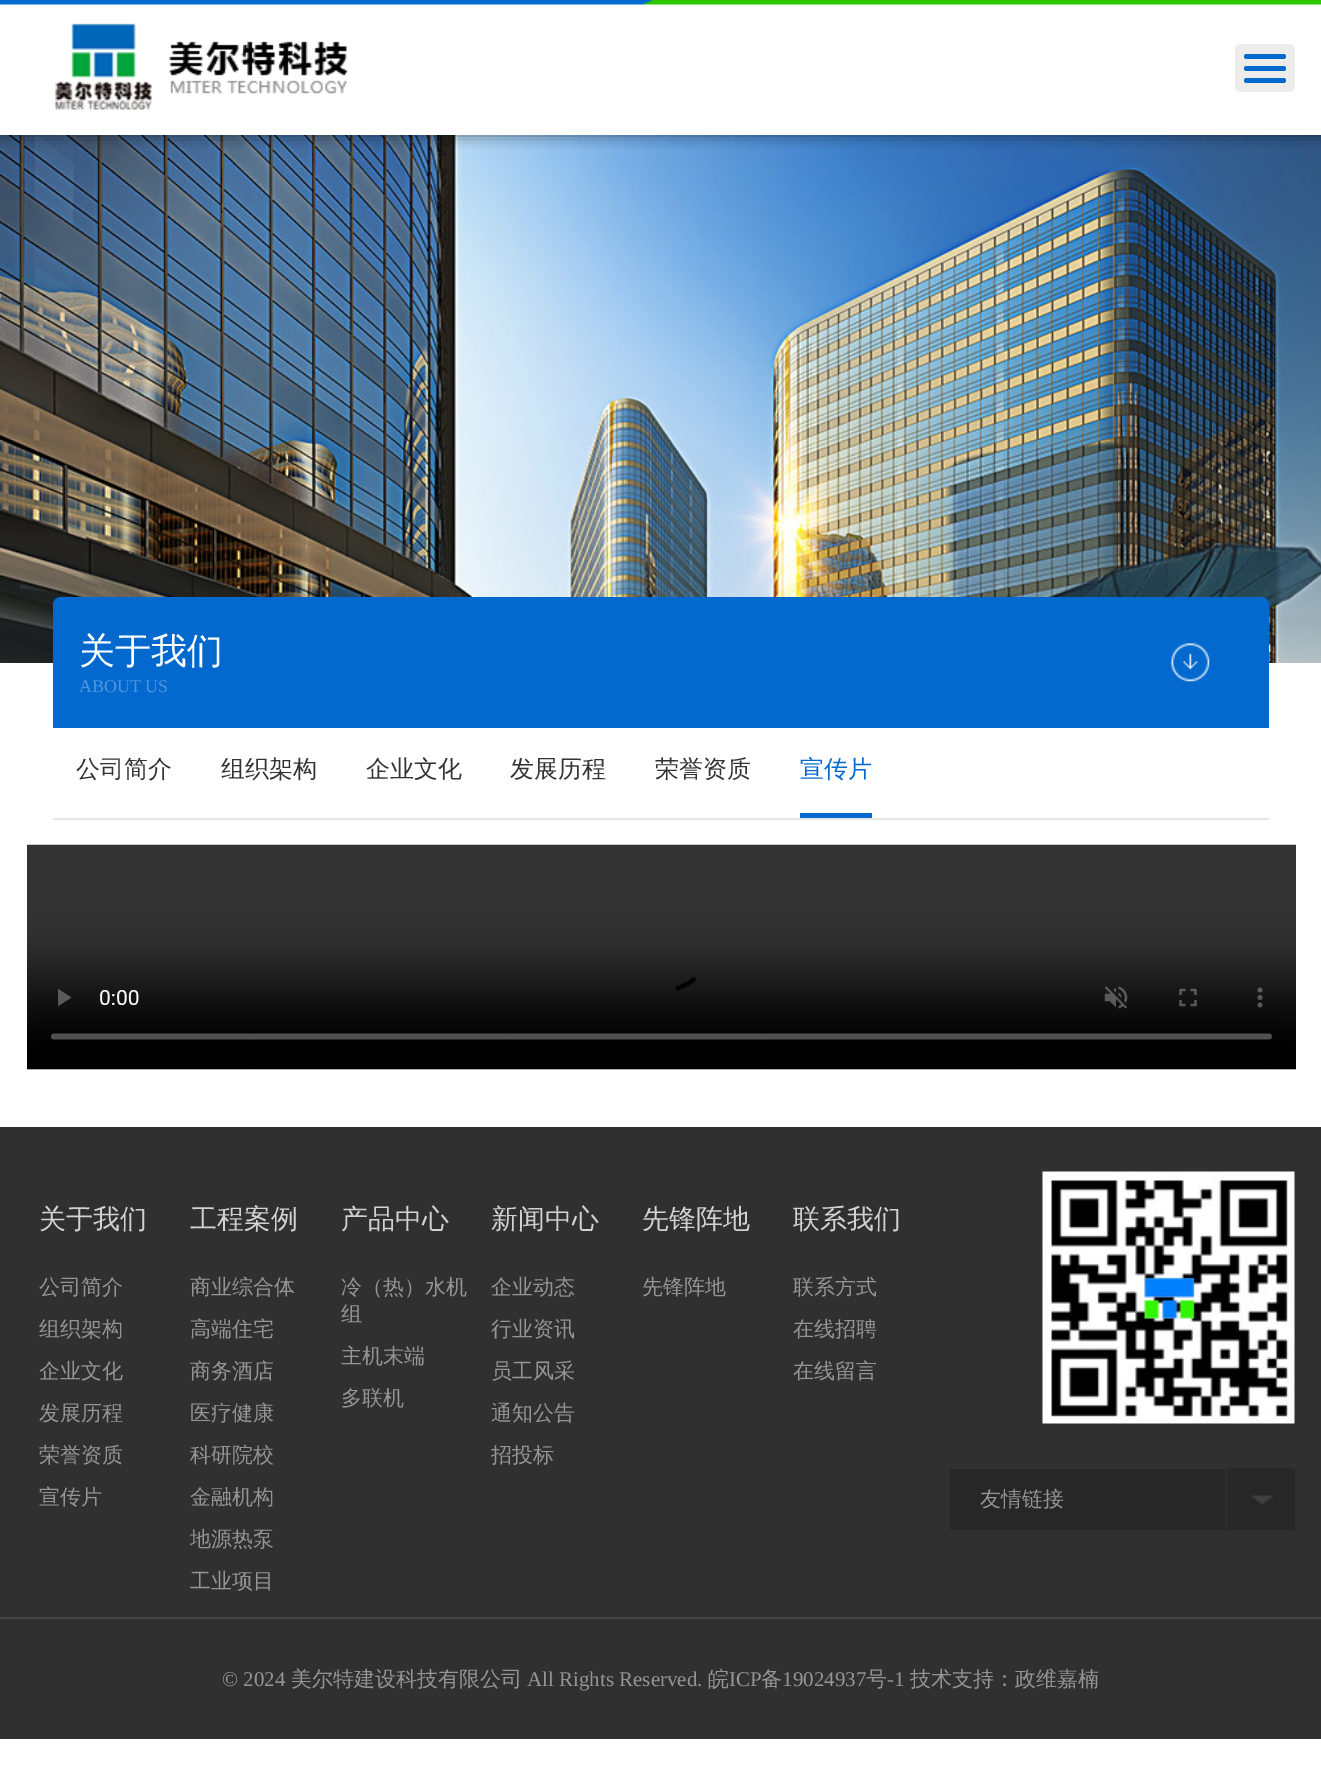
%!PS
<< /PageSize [1321 1769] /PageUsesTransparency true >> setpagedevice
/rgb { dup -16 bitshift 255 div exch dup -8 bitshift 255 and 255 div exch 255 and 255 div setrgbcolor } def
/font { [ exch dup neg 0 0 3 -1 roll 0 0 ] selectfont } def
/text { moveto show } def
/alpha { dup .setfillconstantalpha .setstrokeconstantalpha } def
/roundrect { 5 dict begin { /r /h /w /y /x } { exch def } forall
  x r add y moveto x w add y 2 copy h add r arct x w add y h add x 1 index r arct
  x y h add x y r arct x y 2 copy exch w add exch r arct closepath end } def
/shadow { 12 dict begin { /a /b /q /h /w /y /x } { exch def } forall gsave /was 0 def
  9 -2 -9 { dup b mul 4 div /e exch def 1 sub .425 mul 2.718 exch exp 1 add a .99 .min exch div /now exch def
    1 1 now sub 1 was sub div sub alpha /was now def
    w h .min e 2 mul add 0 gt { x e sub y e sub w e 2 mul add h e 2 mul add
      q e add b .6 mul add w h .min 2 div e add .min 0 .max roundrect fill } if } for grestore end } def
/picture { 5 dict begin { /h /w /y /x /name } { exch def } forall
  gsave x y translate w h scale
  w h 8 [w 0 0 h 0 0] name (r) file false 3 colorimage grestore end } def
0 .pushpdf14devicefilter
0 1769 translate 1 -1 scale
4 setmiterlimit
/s1 { /WenQuanYiZenHei-Medium 36 font 16#FFFFFF rgb } def
/s2 { /LiberationSerif-Regular 18 font 16#4F96DD rgb } def
/s3 { /WenQuanYiZenHei-Medium 24 font 16#333333 rgb } def
/s4 { /WenQuanYiZenHei-Medium 24 font 16#0369CE rgb } def
/s5 { /WenQuanYiZenHei-Medium 27 font 16#D2D2D2 rgb } def
/s6 { /WenQuanYiZenHei-Medium 21 font 16#959595 rgb } def
/s7 { /LiberationSerif-Regular 21 font 16#959595 rgb } def
16#FFFFFF rgb
0 0 1321 1769 rectfill
(pic3.raw) 0 135 1321 528 picture
gsave
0 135 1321 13 rectclip
16#000000 rgb
0 0 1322 135 0 7.5 0.5 shadow
grestore
(pic1.raw) 0 0 1321 5 picture
(pic2.raw) 55 23 294 87 picture
16#ECECEB rgb
1235 44 60 48 6 roundrect fill
16#0369CE rgb
1244 66 42 5 2.5 roundrect fill
1244 54 42 5 2.5 roundrect fill
1244 78 42 5 2.5 roundrect fill
61 597 moveto 1261 597 lineto 1265.5 597 1269 600.5 1269 605 curveto 1269 728 lineto 53 728 lineto 53 605 lineto 53 600.5 56.5 597 61 597 curveto closepath fill
(pic4.raw) 1171 643 39 39 picture
s1
(关于我们) 79 663 text
s2
(ABOUT US) 79 692 text
16#E6E6E6 rgb
53 818 1216 2 rectfill
s3
(公司简介) 76 777 text
(组织架构) 221 777 text
(企业文化) 366 777 text
(发展历程) 510 777 text
(荣誉资质) 655 777 text
16#0369CE rgb
800 813 72 5 rectfill
(宣传片) 800 777 text
(pic5.raw) 27 844 1269 226 picture
16#303030 rgb
0 1127 1321 612 rectfill
s5
(关于我们) 39 1228 text
s6
(公司简介) 39 1294 text
(组织架构) 39 1336 text
(企业文化) 39 1378 text
(发展历程) 39 1420 text
(荣誉资质) 39 1462 text
(宣传片) 39 1504 text
s5
(工程案例) 190 1228 text
s6
(商业综合体) 190 1294 text
(高端住宅) 190 1336 text
(商务酒店) 190 1378 text
(医疗健康) 190 1420 text
(科研院校) 190 1462 text
(金融机构) 190 1504 text
(地源热泵) 190 1546 text
(工业项目) 190 1588 text
s5
(产品中心) 341 1228 text
s6
(冷（热）水机) 341 1294 text
(组) 341 1321 text
(主机末端) 341 1363 text
(多联机) 341 1405 text
s5
(新闻中心) 491 1228 text
s6
(企业动态) 491 1294 text
(行业资讯) 491 1336 text
(员工风采) 491 1378 text
(通知公告) 491 1420 text
(招投标) 491 1462 text
s5
(先锋阵地) 642 1228 text
s6
(先锋阵地) 642 1294 text
s5
(联系我们) 793 1228 text
s6
(联系方式) 793 1294 text
(在线招聘) 793 1336 text
(在线留言) 793 1378 text
(pic6.raw) 1042 1171 253 253 picture
16#272727 rgb
950 1469 345 61 rectfill
s6
(友情链接) 980 1506 text
(pic7.raw) 1225 1468 69 62 picture
s7
(© 2024) 222 1686 text
s6
(美尔特建设科技有限公司) 291 1686 text
s7
(All Rights Reserved.) 527 1686 text
s6
(皖) 708 1686 text
s7
(ICP) 729 1686 text
s6
(备) 761 1686 text
s7
(19024937) 782 1686 text
s6
(号) 866 1686 text
s7
(-1) 887 1686 text
s6
(技术支持：政维嘉楠) 910 1686 text
16#454545 rgb
0 1617 1321 2 rectfill
.poppdf14devicefilter showpage
